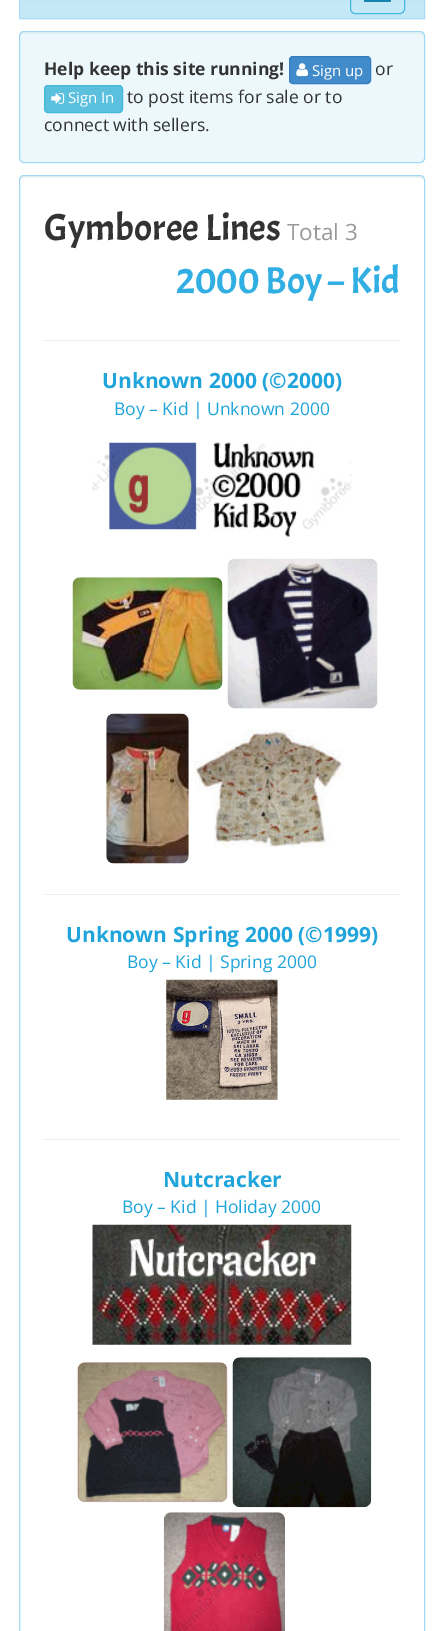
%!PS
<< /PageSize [443 1631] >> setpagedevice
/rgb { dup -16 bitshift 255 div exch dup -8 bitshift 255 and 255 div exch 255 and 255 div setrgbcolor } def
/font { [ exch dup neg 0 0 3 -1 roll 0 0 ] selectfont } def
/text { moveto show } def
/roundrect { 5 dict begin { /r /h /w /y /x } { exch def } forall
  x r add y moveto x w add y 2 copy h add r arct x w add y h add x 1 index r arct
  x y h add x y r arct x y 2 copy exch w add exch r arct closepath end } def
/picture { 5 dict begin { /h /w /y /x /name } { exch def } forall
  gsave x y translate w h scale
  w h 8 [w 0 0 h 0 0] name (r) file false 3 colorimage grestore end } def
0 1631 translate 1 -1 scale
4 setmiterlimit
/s1 { /OpenSans-Bold 17.5 font 16#333333 rgb } def
/s2 { /OpenSans-Regular 15 font 16#FFFFFF rgb } def
/s3 { /OpenSans-Regular 17.5 font 16#333333 rgb } def
/s4 { /Acme-Regular 37.5 font 16#333333 rgb } def
/s5 { /OpenSans-Regular 22.5 font 16#999999 rgb } def
/s6 { /Acme-Regular 37.5 font 16#31AEE2 rgb } def
/s7 { /OpenSans-Bold 21 font 16#1FA4DB rgb } def
/s8 { /OpenSans-Regular 17.5 font 16#1FA4DB rgb } def
16#FFFFFF rgb
0 0 443 1631 rectfill
16#C5E8F7 rgb
19.5 -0.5 moveto 424.5 -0.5 lineto 424.5 18.5 lineto 19.5 18.5 lineto closepath gsave fill grestore
16#A8DDF3 rgb
stroke
16#48B7E5 rgb
350.5 -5.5 54 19 4.5 roundrect stroke
16#1883AF rgb
364 -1 27 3 1.5 roundrect fill
16#EDF8FD rgb
19 31 406 132 5 roundrect fill
16#E1ECF0 rgb
24 34 moveto 420 34 lineto 422 34 424 35 424 38 curveto 424 35 423 33 420 33 curveto 24 33 lineto 21 33 20 35 20 38 curveto 20 35 22 34 24 34 curveto closepath fill
16#A1DAF2 rgb
19.5 31.5 405 131 4.5 roundrect stroke
s1
(Help keep this site running!) 44 75 text
16#428BCA rgb
289.5 56.5 81 27 3.5 roundrect gsave fill grestore
16#357EBD rgb
stroke
(pic1.raw) 296 63 12 14 picture
s2
(Sign up) 312 76 text
s3
(or) 375 75 text
16#5BC0DE rgb
44.5 85.5 78 27 3.5 roundrect gsave fill grestore
16#46B8DA rgb
stroke
(pic2.raw) 51 93 14 11 picture
s2
(Sign In) 68 103 text
s3
(to post items for sale or to) 127 103 text
(connect with sellers.) 44 131 text
16#F2F2F2 rgb
24 178 moveto 420 178 lineto 422 178 424 179 424 181 curveto 424 178 423 176 420 176 curveto 24 176 lineto 21 176 20 178 20 181 curveto 20 179 22 178 24 178 curveto closepath fill
16#A1DAF2 rgb
19.5 175.5 405 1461 4.5 roundrect stroke
s4
(Gymboree Lines) 44 240 text
s5
(Total 3) 287 240 text
s6
(2000 Boy – Kid) 176 293 text
16#EEEEEE rgb
44 340 356 1 rectfill
s7
(Unknown 2000 \(©2000\)) 102 388 text
s8
(Boy – Kid | Unknown 2000) 114 415 text
(pic3.raw) 92 442 260 95 picture
(pic4.raw) 72 577 151 113 picture
(pic5.raw) 227 558 151 151 picture
(pic6.raw) 106 713 83 151 picture
(pic7.raw) 194 730 150 117 picture
16#EEEEEE rgb
44 894 356 1 rectfill
s7
(Unknown Spring 2000 \(©1999\)) 66 942 text
s8
(Boy – Kid | Spring 2000) 127 968 text
(pic8.raw) 166 979 112 121 picture
16#EEEEEE rgb
44 1139 356 1 rectfill
s7
(Nutcracker) 163 1187 text
s8
(Boy – Kid | Holiday 2000) 122 1213 text
(pic9.raw) 92 1224 260 121 picture
(pic10.raw) 77 1362 151 141 picture
(pic11.raw) 232 1357 140 151 picture
(pic12.raw) 163 1512 122 119 picture
showpage
